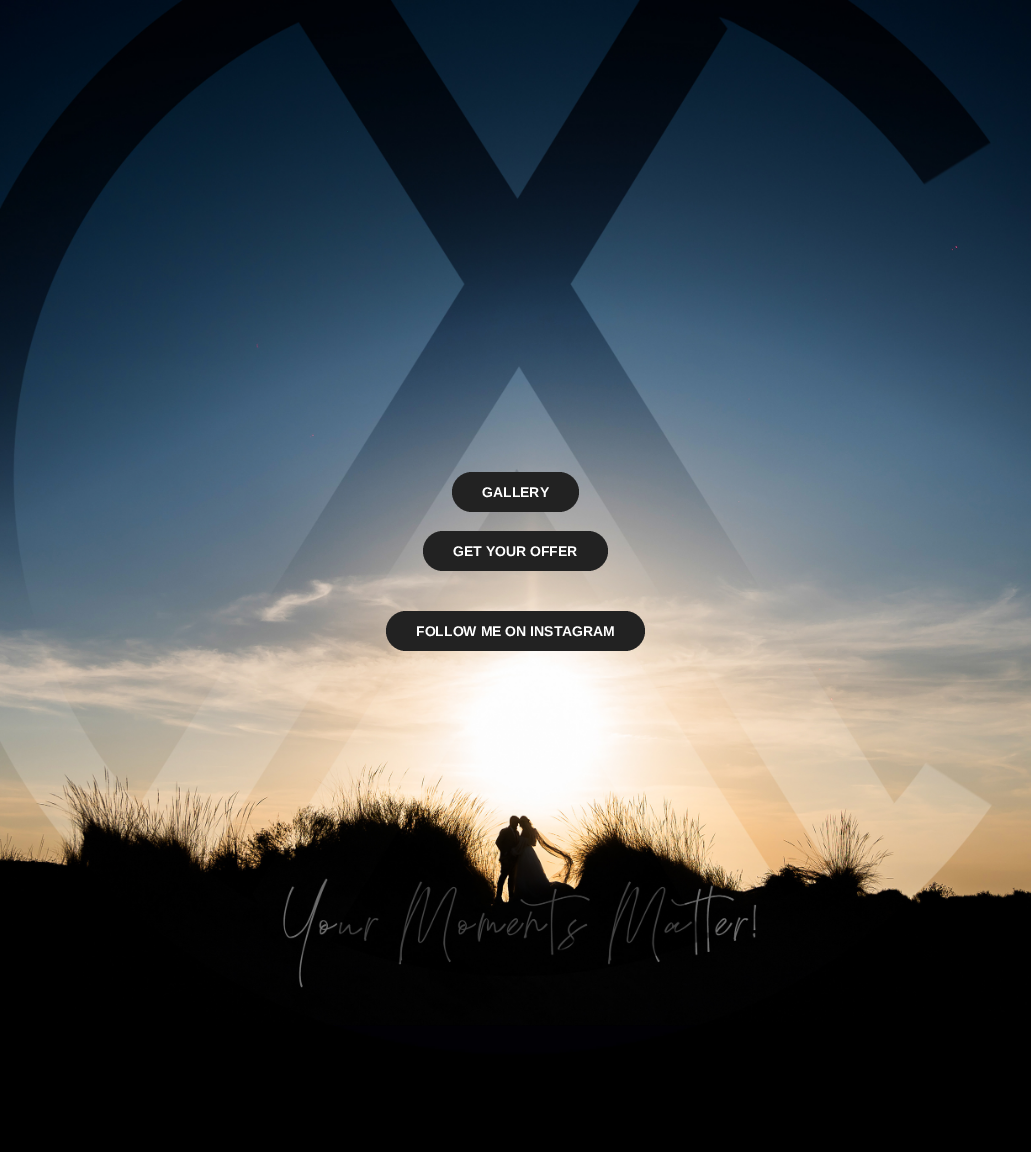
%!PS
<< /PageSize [1031 1152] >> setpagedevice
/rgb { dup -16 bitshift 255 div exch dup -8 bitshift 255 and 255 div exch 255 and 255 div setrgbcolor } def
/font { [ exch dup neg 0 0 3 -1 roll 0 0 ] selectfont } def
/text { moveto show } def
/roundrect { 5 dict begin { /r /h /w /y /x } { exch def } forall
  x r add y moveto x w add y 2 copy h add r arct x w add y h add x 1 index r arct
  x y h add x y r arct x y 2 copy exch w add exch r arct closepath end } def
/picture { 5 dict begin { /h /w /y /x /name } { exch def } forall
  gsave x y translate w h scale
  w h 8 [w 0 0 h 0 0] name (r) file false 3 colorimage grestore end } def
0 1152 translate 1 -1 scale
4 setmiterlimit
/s1 { /LiberationSans-Bold 14 font 16#FFFFFF rgb } def
16#FFFFFF rgb
0 0 1031 1152 rectfill
(pic1.raw) 0 0 1031 1152 picture
16#222222 rgb
452 472 127 40 20 roundrect fill
s1
(GALLERY) 482 497 text
16#222222 rgb
423 531 185 40 20 roundrect fill
s1
(GET YOUR OFFER) 453 556 text
16#222222 rgb
386 611 259 40 20 roundrect fill
s1
(FOLLOW ME ON INSTAGRAM) 416 636 text
showpage
